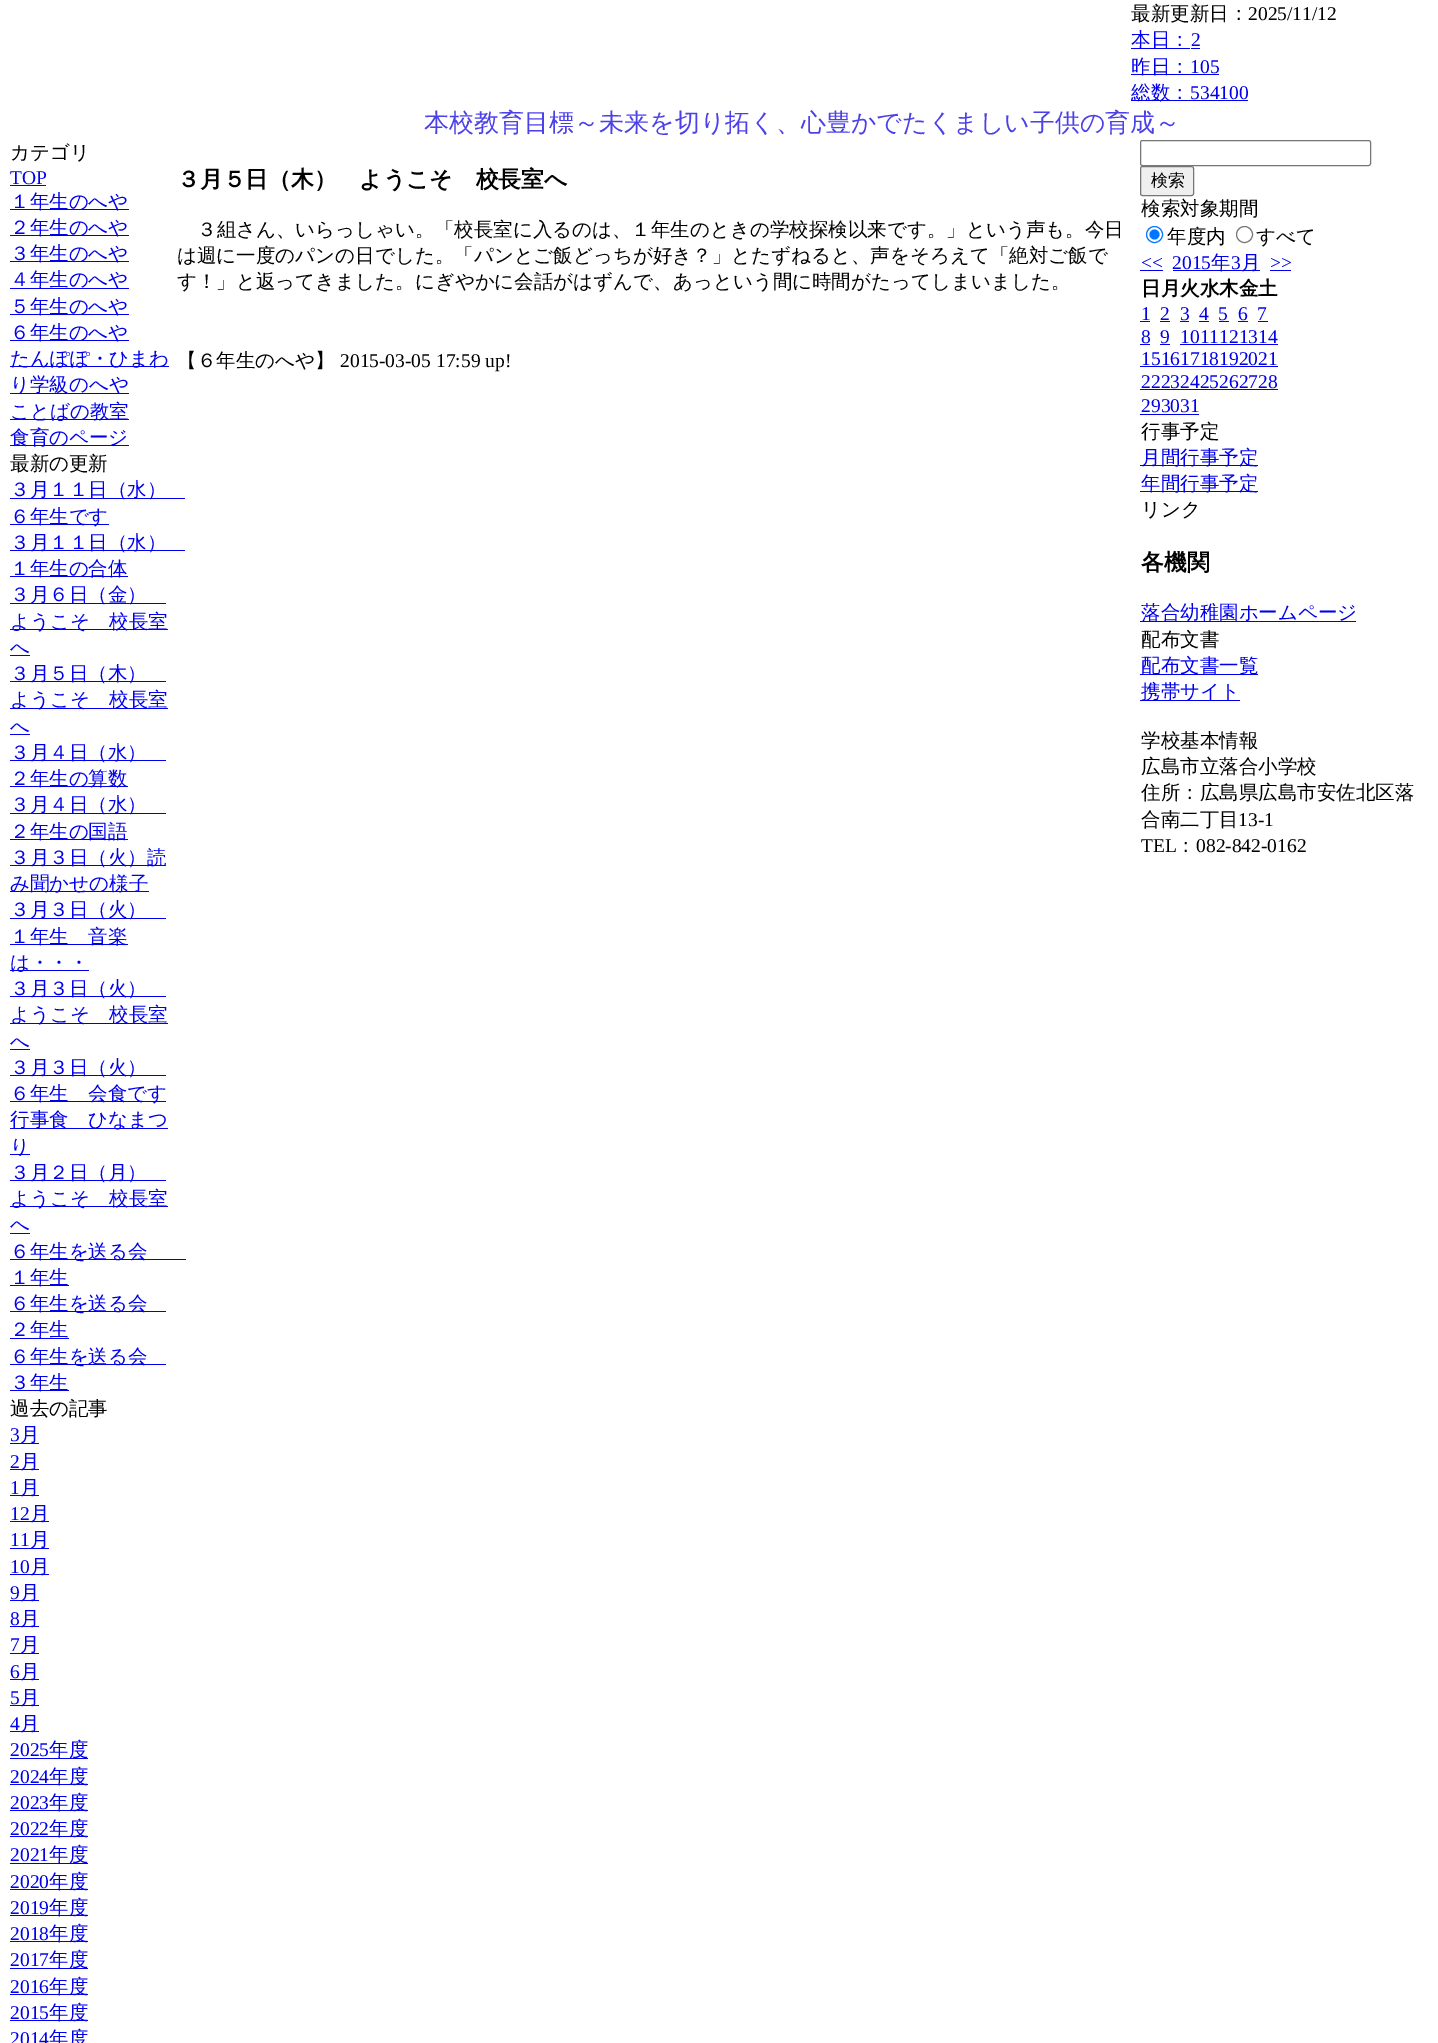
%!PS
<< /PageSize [1438 2043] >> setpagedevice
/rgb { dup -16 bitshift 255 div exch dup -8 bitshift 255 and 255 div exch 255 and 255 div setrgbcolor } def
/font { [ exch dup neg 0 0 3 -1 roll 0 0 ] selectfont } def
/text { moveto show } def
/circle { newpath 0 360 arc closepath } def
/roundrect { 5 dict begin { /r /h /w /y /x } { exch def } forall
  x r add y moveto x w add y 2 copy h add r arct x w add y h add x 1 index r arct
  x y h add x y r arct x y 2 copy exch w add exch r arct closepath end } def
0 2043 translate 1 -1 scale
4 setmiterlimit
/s1 { /WenQuanYiZenHei-Medium 19.5 font 16#000000 rgb } def
/s2 { /LiberationSerif-Regular 19.5 font 16#000000 rgb } def
/s3 { /WenQuanYiZenHei-Medium 19.5 font 16#0000EE rgb } def
/s4 { /LiberationSerif-Regular 19.5 font 16#0000EE rgb } def
/s5 { /WenQuanYiZenHei-Medium 25 font 16#4C40E8 rgb } def
/s6 { /WenQuanYiZenHei-Bold 22.8 font 16#000000 rgb } def
/s7 { /WenQuanYiZenHei-Medium 17 font 16#000000 rgb } def
/s8 { /WenQuanYiZenHei-Bold 19.5 font 16#000000 rgb } def
16#FFFFFF rgb
0 0 1438 2043 rectfill
s1
(最新更新日：) 1131 20 text
s2
(2025/11/12) 1248 20 text
16#0000EE rgb
1131 48 59 1 rectfill
s3
(本日：) 1131 46 text
s4
(2) 1191 46 text
1191 48 9 1 rectfill
1131 74 88 1 rectfill
s3
(昨日：) 1131 73 text
s4
(105) 1190 73 text
1131 100 117 1 rectfill
s3
(総数：) 1131 99 text
s4
(534100) 1190 99 text
s5
(本校教育目標～未来を切り拓く、心豊かでたくましい子供の育成～) 424 131 text
s1
(カテゴリ) 10 159 text
s4
(TOP) 10 184 text
10 185 36 1 rectfill
10 209 119 1 rectfill
s3
(１年生のへや) 10 208 text
10 235 119 1 rectfill
(２年生のへや) 10 234 text
10 261 119 1 rectfill
(３年生のへや) 10 260 text
10 288 119 1 rectfill
(４年生のへや) 10 286 text
10 314 119 1 rectfill
(５年生のへや) 10 313 text
10 340 119 1 rectfill
(６年生のへや) 10 339 text
10 366 159 1 rectfill
(たんぽぽ・ひまわ) 10 365 text
10 393 119 1 rectfill
(り学級のへや) 10 391 text
10 419 119 1 rectfill
(ことばの教室) 10 418 text
10 445 119 1 rectfill
(食育のページ) 10 444 text
s1
(最新の更新) 10 470 text
16#0000EE rgb
10 498 175 1 rectfill
(３月１１日（水）) 10 496 text
10 524 99 1 rectfill
(６年生です) 10 523 text
10 550 175 1 rectfill
(３月１１日（水）) 10 549 text
10 576 118 1 rectfill
(１年生の合体) 10 575 text
10 603 156 1 rectfill
(３月６日（金）) 10 601 text
10 629 158 1 rectfill
(ようこそ　校長室) 10 628 text
(へ) 10 654 text
10 655 20 1 rectfill
10 681 156 1 rectfill
(３月５日（木）) 10 680 text
10 708 158 1 rectfill
(ようこそ　校長室) 10 706 text
(へ) 10 733 text
10 734 20 1 rectfill
10 760 156 1 rectfill
(３月４日（水）) 10 759 text
10 786 118 1 rectfill
(２年生の算数) 10 785 text
10 813 156 1 rectfill
(３月４日（水）) 10 811 text
10 839 118 1 rectfill
(２年生の国語) 10 838 text
10 865 156 1 rectfill
(３月３日（火）読) 10 864 text
10 891 139 1 rectfill
(み聞かせの様子) 10 890 text
10 918 156 1 rectfill
(３月３日（火）) 10 916 text
10 944 118 1 rectfill
(１年生　音楽) 10 943 text
10 970 79 1 rectfill
(は・・・) 10 969 text
10 996 156 1 rectfill
(３月３日（火）) 10 995 text
10 1023 158 1 rectfill
(ようこそ　校長室) 10 1021 text
(へ) 10 1048 text
10 1049 20 1 rectfill
10 1075 156 1 rectfill
(３月３日（火）) 10 1074 text
10 1101 156 1 rectfill
(６年生　会食です) 10 1100 text
10 1128 158 1 rectfill
(行事食　ひなまつ) 10 1126 text
10 1154 20 1 rectfill
(り) 10 1153 text
10 1180 156 1 rectfill
(３月２日（月）) 10 1179 text
10 1206 158 1 rectfill
(ようこそ　校長室) 10 1205 text
(へ) 10 1231 text
10 1233 20 1 rectfill
10 1259 176 1 rectfill
(６年生を送る会) 10 1258 text
10 1285 59 1 rectfill
(１年生) 10 1284 text
10 1311 156 1 rectfill
(６年生を送る会) 10 1310 text
10 1338 59 1 rectfill
(２年生) 10 1336 text
10 1364 156 1 rectfill
(６年生を送る会) 10 1363 text
10 1390 59 1 rectfill
(３年生) 10 1389 text
s1
(過去の記事) 10 1415 text
s4
(3) 10 1441 text
10 1443 29 1 rectfill
s3
(月) 20 1441 text
s4
(2) 10 1468 text
10 1469 29 1 rectfill
s3
(月) 20 1468 text
s4
(1) 10 1494 text
10 1495 29 1 rectfill
s3
(月) 20 1494 text
s4
(12) 10 1520 text
10 1521 39 1 rectfill
s3
(月) 30 1520 text
s4
(11) 10 1546 text
10 1548 39 1 rectfill
s3
(月) 30 1546 text
s4
(10) 10 1573 text
10 1574 39 1 rectfill
s3
(月) 30 1573 text
s4
(9) 10 1599 text
10 1600 29 1 rectfill
s3
(月) 20 1599 text
s4
(8) 10 1625 text
10 1626 29 1 rectfill
s3
(月) 20 1625 text
s4
(7) 10 1651 text
10 1653 29 1 rectfill
s3
(月) 20 1651 text
s4
(6) 10 1678 text
10 1679 29 1 rectfill
s3
(月) 20 1678 text
s4
(5) 10 1704 text
10 1705 29 1 rectfill
s3
(月) 20 1704 text
s4
(4) 10 1730 text
10 1731 29 1 rectfill
s3
(月) 20 1730 text
s4
(2025) 10 1756 text
10 1758 78 1 rectfill
s3
(年度) 49 1756 text
s4
(2024) 10 1783 text
10 1784 78 1 rectfill
s3
(年度) 49 1783 text
s4
(2023) 10 1809 text
10 1810 78 1 rectfill
s3
(年度) 49 1809 text
s4
(2022) 10 1835 text
10 1836 78 1 rectfill
s3
(年度) 49 1835 text
s4
(2021) 10 1861 text
10 1863 78 1 rectfill
s3
(年度) 49 1861 text
s4
(2020) 10 1888 text
10 1889 78 1 rectfill
s3
(年度) 49 1888 text
s4
(2019) 10 1914 text
10 1915 78 1 rectfill
s3
(年度) 49 1914 text
s4
(2018) 10 1940 text
10 1941 78 1 rectfill
s3
(年度) 49 1940 text
s4
(2017) 10 1966 text
10 1968 78 1 rectfill
s3
(年度) 49 1966 text
s4
(2016) 10 1993 text
10 1994 78 1 rectfill
s3
(年度) 49 1993 text
s4
(2015) 10 2019 text
10 2020 78 1 rectfill
s3
(年度) 49 2019 text
s4
(2014) 10 2045 text
s3
(年度) 49 2045 text
s6
(３月５日（木）　ようこそ　校長室へ) 177 187 text
s1
(３組さん、いらっしゃい。「校長室に入るのは、１年生のときの学校探検以来です。」という声も。今日) 197 236 text
(は週に一度のパンの日でした。「パンとご飯どっちが好き？」とたずねると、声をそろえて「絶対ご飯で) 177 262 text
(す！」と返ってきました。にぎやかに会話がはずんで、あっという間に時間がたってしまいました。) 177 288 text
(【６年生のへや】) 177 367 text
s2
(2015-03-05 17:59 up!) 340 367 text
16#767676 rgb
1140.5 140.5 230 25 2 roundrect stroke
16#EFEFEF rgb
1140.5 166.5 53 29 2 roundrect gsave fill grestore
16#767676 rgb
stroke
s7
(検索) 1151 186 text
s1
(検索対象期間) 1141 215 text
16#0075FF rgb
1154.5 234.5 8 circle stroke
1154.5 234.5 5 circle fill
s1
(年度内) 1167 243 text
16#767676 rgb
1244.5 234.5 8 circle stroke
s1
(すべて) 1256 243 text
s4
(<<) 1141 269 text
1140 270 23 1 rectfill
(2015) 1172 269 text
1173 270 87 1 rectfill
s3
(年) 1211 269 text
s4
(3) 1231 269 text
s3
(月) 1241 269 text
s4
(>>) 1270 269 text
1270 270 21 1 rectfill
s8
(日月火水木金土) 1141 295 text
s4
(1) 1141 320 text
1140 321 10 1 rectfill
(2) 1160 320 text
1160 321 10 1 rectfill
(3) 1180 320 text
1180 321 9 1 rectfill
(4) 1199 320 text
1199 321 10 1 rectfill
(5) 1218 320 text
1219 321 10 1 rectfill
(6) 1238 320 text
1238 321 10 1 rectfill
(7) 1257 320 text
1258 321 10 1 rectfill
(8) 1141 343 text
1140 344 10 1 rectfill
(9) 1160 343 text
1160 344 10 1 rectfill
(1011121314) 1180 343 text
1180 344 98 1 rectfill
(15161718192021) 1141 365 text
1140 366 138 1 rectfill
(22232425262728) 1141 388 text
1140 389 138 1 rectfill
(293031) 1141 412 text
1140 414 59 1 rectfill
s1
(行事予定) 1141 438 text
16#0000EE rgb
1140 465 118 1 rectfill
(月間行事予定) 1141 464 text
1140 491 118 1 rectfill
(年間行事予定) 1141 490 text
s1
(リンク) 1141 516 text
s6
(各機関) 1141 570 text
16#0000EE rgb
1140 621 216 1 rectfill
s3
(落合幼稚園ホームページ) 1141 619 text
s1
(配布文書) 1141 646 text
16#0000EE rgb
1140 674 118 1 rectfill
(配布文書一覧) 1141 672 text
1140 700 100 1 rectfill
(携帯サイト) 1141 698 text
s1
(学校基本情報) 1141 747 text
(広島市立落合小学校) 1141 773 text
(住所：広島県広島市安佐北区落) 1141 799 text
(合南二丁目) 1141 826 text
s2
(13-1) 1238 826 text
(TEL) 1141 852 text
s1
(：) 1176 852 text
s2
(082-842-0162) 1196 852 text
showpage
